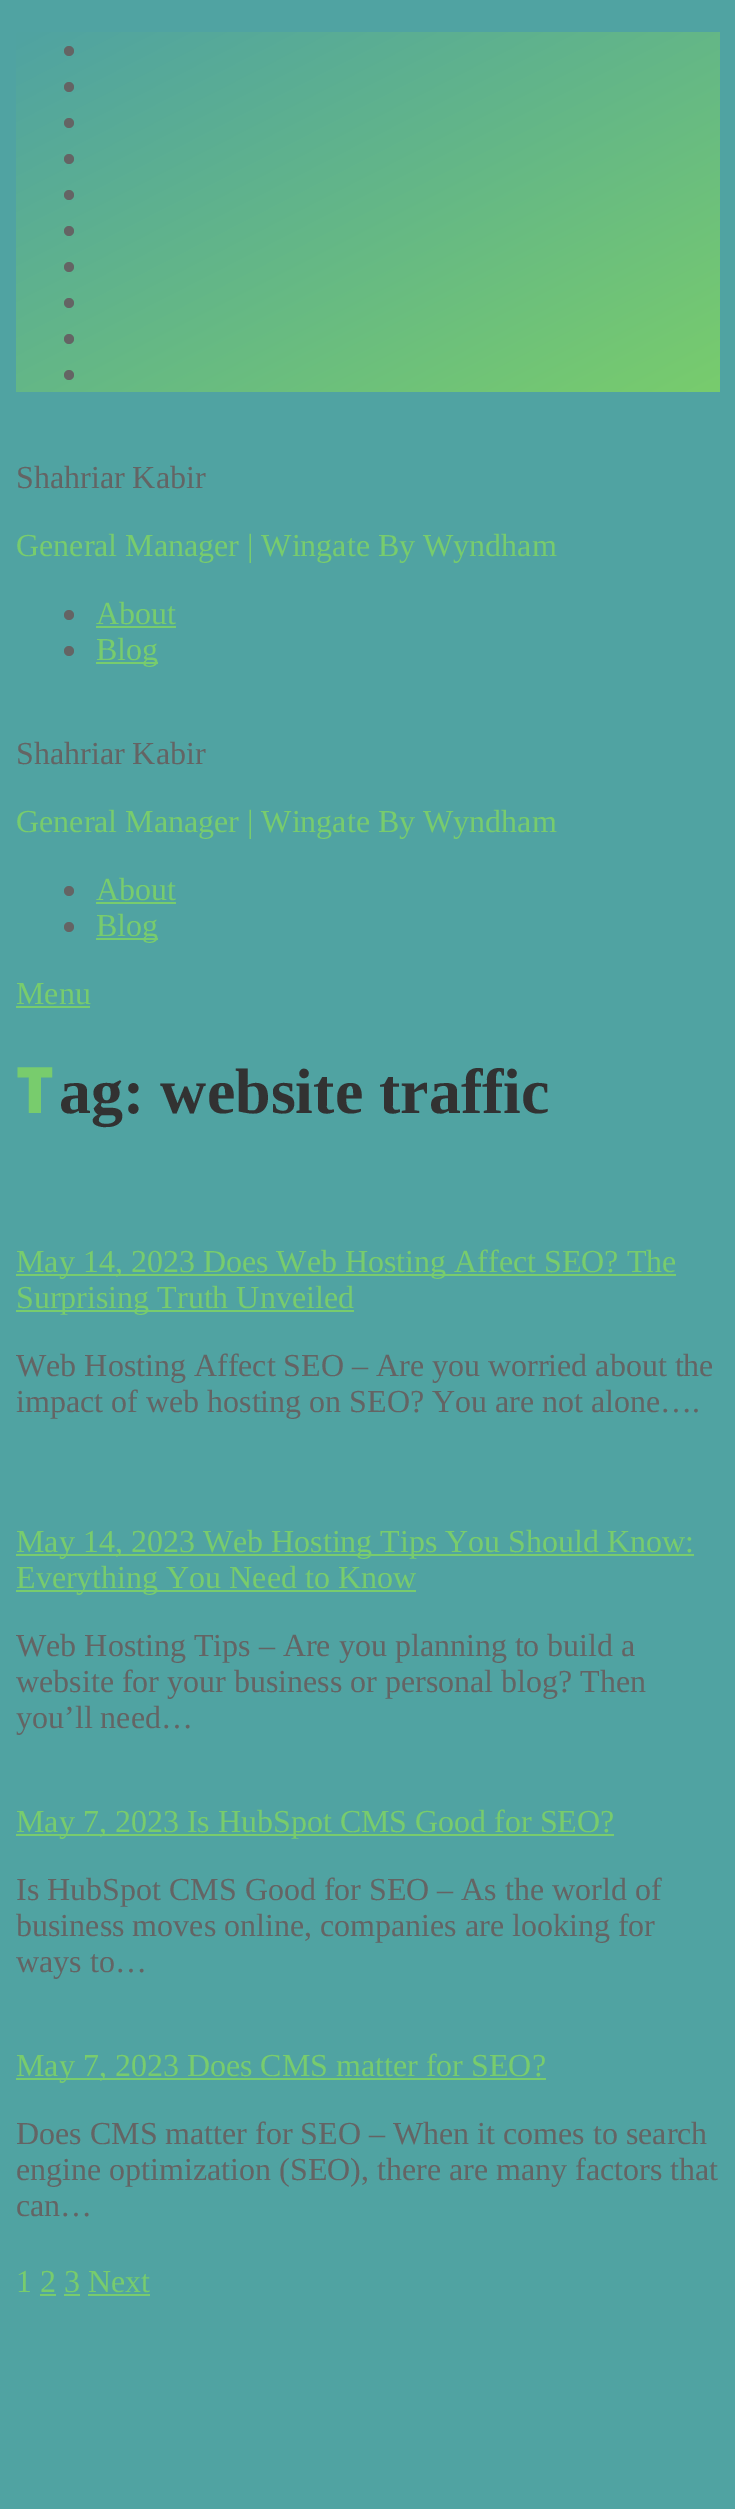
%!PS
<< /PageSize [735 2509] >> setpagedevice
/rgb { dup -16 bitshift 255 div exch dup -8 bitshift 255 and 255 div exch 255 and 255 div setrgbcolor } def
/font { [ exch dup neg 0 0 3 -1 roll 0 0 ] selectfont } def
/text { moveto show } def
/circle { newpath 0 360 arc closepath } def
0 2509 translate 1 -1 scale
4 setmiterlimit
/s1 { /LiberationSerif-Regular 32 font 16#646464 rgb } def
/s2 { /LiberationSerif-Regular 32 font 16#78CC6D rgb } def
/s3 { /NotoSans-Black 64 font 16#78CC6D rgb } def
/s4 { /LiberationSerif-Bold 64 font 16#323232 rgb } def
16#50A3A2 rgb
0 0 735 2509 rectfill
gsave 16 32 moveto 720 32 lineto 720 392 lineto 16 392 lineto closepath clip newpath
<< /ShadingType 2 /ColorSpace /DeviceRGB /Coords [222 -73 514 497] /Extend [true true] /Function << /FunctionType 2 /Domain [0 1] /C0 [0.314 0.639 0.635] /C1 [0.471 0.8 0.427] /N 1 >> >> shfill grestore
16#646464 rgb
69 51 5 circle fill
69 87 5 circle fill
69 123 5 circle fill
69 159 5 circle fill
69 195 5 circle fill
69 231 5 circle fill
69 267 5 circle fill
69 303 5 circle fill
69 339 5 circle fill
69 375 5 circle fill
s1
(Shahriar Kabir) 16 488 text
s2
(General Manager | Wingate By Wyndham) 16 556 text
16#646464 rgb
69 615 5 circle fill
s2
(About) 96 624 text
96 626 80 2 rectfill
16#646464 rgb
69 651 5 circle fill
16#78CC6D rgb
96 662 62 2 rectfill
(Blog) 96 660 text
s1
(Shahriar Kabir) 16 764 text
s2
(General Manager | Wingate By Wyndham) 16 832 text
16#646464 rgb
69 891 5 circle fill
s2
(About) 96 900 text
96 902 80 2 rectfill
16#646464 rgb
69 927 5 circle fill
16#78CC6D rgb
96 938 62 2 rectfill
(Blog) 96 936 text
(Menu) 16 1004 text
16 1006 74 2 rectfill
s3
(T) 16 1113 text
s4
(ag: website traffic) 59 1113 text
16#78CC6D rgb
16 1274 660 2 rectfill
s2
(May 14, 2023 Does Web Hosting Affect SEO? The) 16 1272 text
16 1310 338 2 rectfill
(Surprising Truth Unveiled) 16 1308 text
s1
(Web Hosting Affect SEO – Are you worried about the) 16 1376 text
(impact of web hosting on SEO? You are not alone….) 16 1412 text
16#78CC6D rgb
16 1554 678 2 rectfill
(May 14, 2023 Web Hosting Tips You Should Know:) 16 1552 text
16 1590 400 2 rectfill
(Everything You Need to Know) 16 1588 text
s1
(Web Hosting Tips – Are you planning to build a) 16 1656 text
(website for your business or personal blog? Then) 16 1692 text
(you’ll need…) 16 1728 text
16#78CC6D rgb
16 1834 598 2 rectfill
(May 7, 2023 Is HubSpot CMS Good for SEO?) 16 1832 text
s1
(Is HubSpot CMS Good for SEO – As the world of) 16 1900 text
(business moves online, companies are looking for) 16 1936 text
(ways to…) 16 1972 text
16#78CC6D rgb
16 2078 530 2 rectfill
(May 7, 2023 Does CMS matter for SEO?) 16 2076 text
s1
(Does CMS matter for SEO – When it comes to search) 16 2144 text
(engine optimization \(SEO\), there are many factors that) 16 2180 text
(can…) 16 2216 text
s2
(1 2 3 Next) 16 2292 text
40 2294 16 2 rectfill
64 2294 16 2 rectfill
88 2294 62 2 rectfill
showpage
